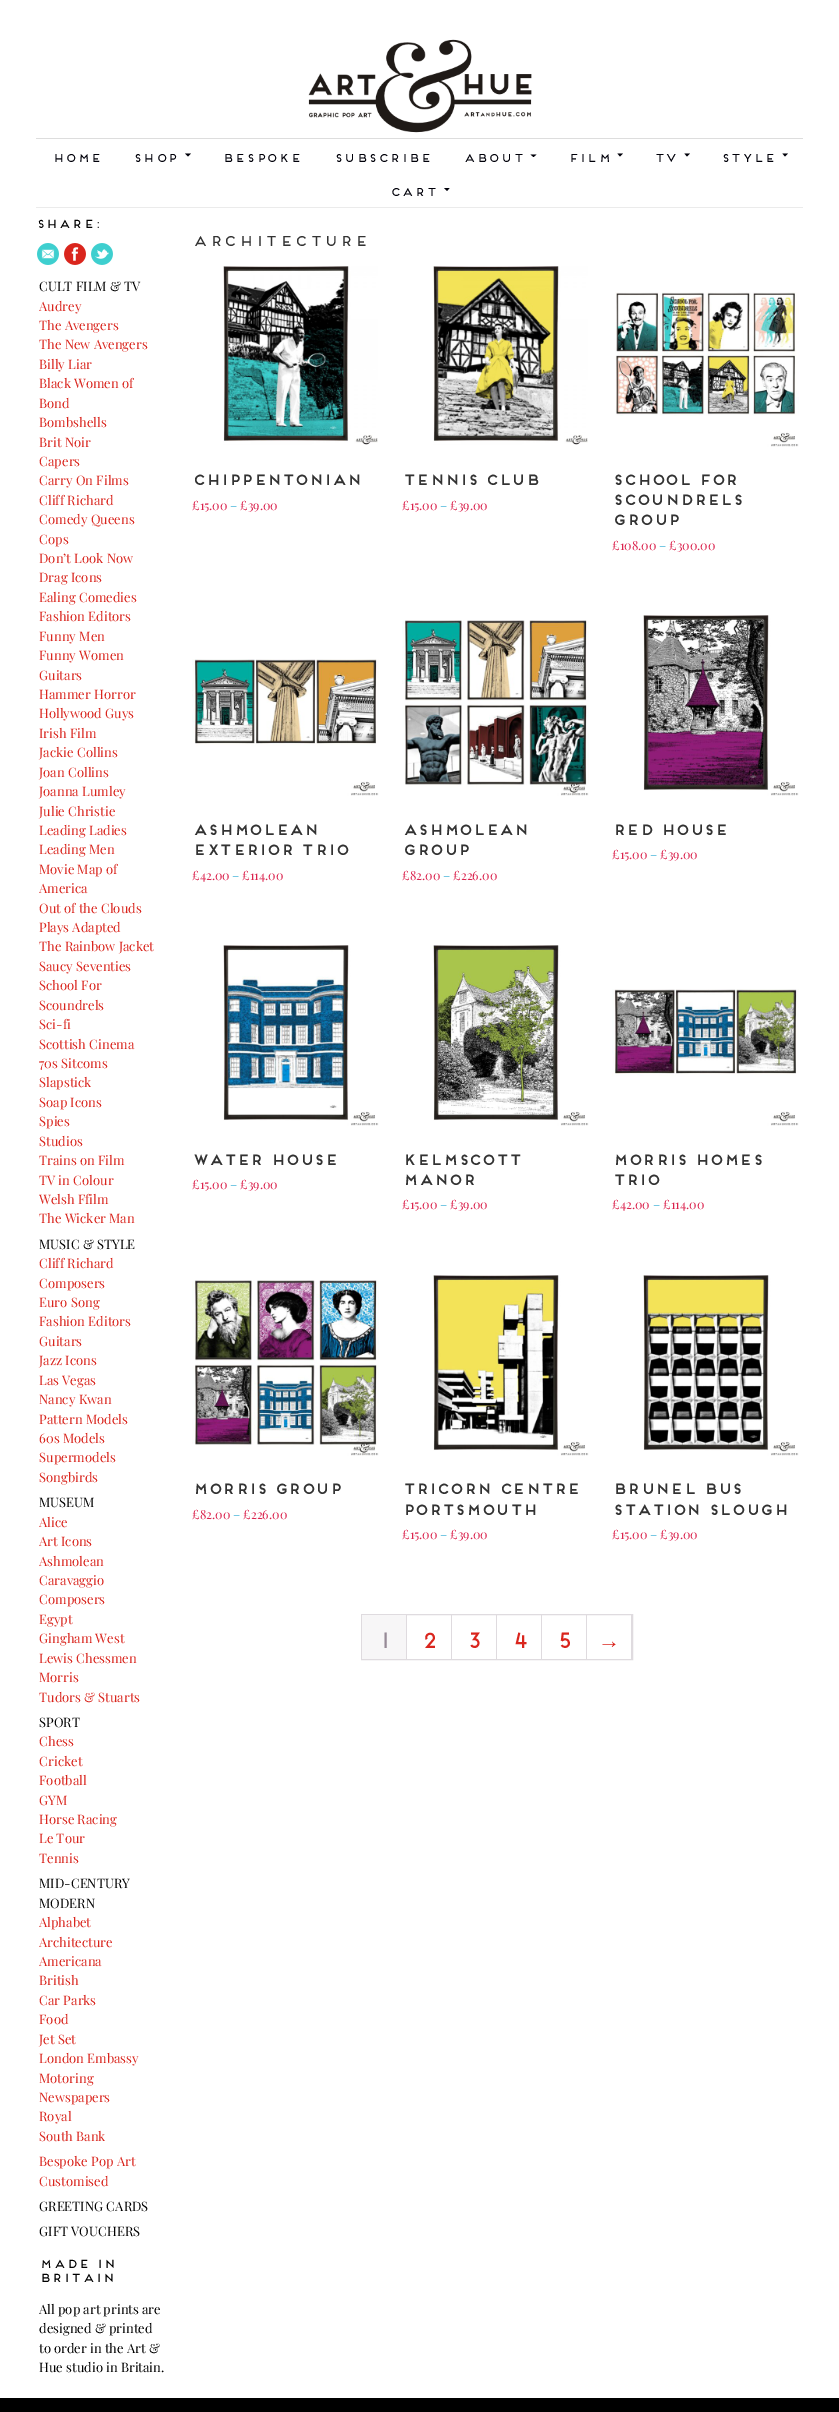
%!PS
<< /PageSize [839 2412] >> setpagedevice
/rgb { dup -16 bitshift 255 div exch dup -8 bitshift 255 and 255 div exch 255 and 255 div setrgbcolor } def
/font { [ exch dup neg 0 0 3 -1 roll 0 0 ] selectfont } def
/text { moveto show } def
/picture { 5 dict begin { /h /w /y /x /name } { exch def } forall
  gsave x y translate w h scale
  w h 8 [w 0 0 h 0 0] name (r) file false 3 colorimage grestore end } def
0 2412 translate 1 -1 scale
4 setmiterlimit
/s1 { /PlayfairDisplay-Regular 13 font 16#000000 rgb } def
/s2 { /PlayfairDisplay-Regular 13 font 16#DA251D rgb } def
/s3 { /PlayfairDisplay-Regular 12.5 font 16#DB214C rgb } def
/s4 { /PlayfairDisplay-Regular 12.5 font 16#0099CC rgb } def
/s5 { /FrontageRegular-Regular 22 font 16#978A97 rgb } def
/s6 { /FrontageRegular-Regular 22 font 16#DA251D rgb } def
/s7 { /LiberationSans-Regular 22 font 16#DA251D rgb } def
16#FFFFFF rgb
0 0 839 2412 rectfill
16#EBEBEB rgb
36 207 767 1 rectfill
(pic1.raw) 308 39 224 94 picture
16#DDDDDD rgb
36 138 767 1 rectfill
/FrontageRegular-Regular 11.5 font
16#000009 rgb
52 162 moveto 0.5 0 (HOME) ashow
133 162 moveto 0.5 0 (SHOP) ashow
185 153.5 moveto 191 153.5 lineto 188 156.5 lineto closepath fill
222 162 moveto 0.5 0 (BESPOKE) ashow
334 162 moveto 0.5 0 (SUBSCRIBE) ashow
463 162 moveto 0.5 0 (ABOUT) ashow
530.5 154.5 moveto 536.5 154.5 lineto 533.5 157 lineto closepath fill
568 162 moveto 0.5 0 (FILM) ashow
617.5 153.5 moveto 623 153.5 lineto 620 156.5 lineto closepath fill
654 162 moveto 0.5 0 (TV) ashow
684.5 153.5 moveto 690 153.5 lineto 687 156.5 lineto closepath fill
721 162 moveto 0.5 0 (STYLE) ashow
782.5 153.5 moveto 788 153.5 lineto 785 156.5 lineto closepath fill
390 196 moveto 0.5 0 (CART) ashow
444 188 moveto 449.5 188 lineto 447 191 lineto closepath fill
/FrontageRegular-Regular 11.75 font
16#000000 rgb
36 228 moveto 0.25 0 (SHARE:) ashow
(pic2.raw) 37 243 22 22 picture
(pic3.raw) 64 243 22 22 picture
(pic4.raw) 91 243 22 22 picture
s1
(CULT FILM & TV) 39 291 text
s2
(Audrey) 39 311 text
(The Avengers) 39 330 text
(The New Avengers) 39 349 text
(Billy Liar) 39 369 text
(Black Women of) 39 388 text
(Bond) 39 408 text
(Bombshells) 39 427 text
(Brit Noir) 39 447 text
(Capers) 39 466 text
(Carry On Films) 39 485 text
(Cliff Richard) 39 505 text
(Comedy Queens) 39 524 text
(Cops) 39 544 text
(Don’t Look Now) 39 563 text
(Drag Icons) 39 582 text
(Ealing Comedies) 39 602 text
(Fashion Editors) 39 621 text
(Funny Men) 39 641 text
(Funny Women) 39 660 text
(Guitars) 39 680 text
(Hammer Horror) 39 699 text
(Hollywood Guys) 39 718 text
(Irish Film) 39 738 text
(Jackie Collins) 39 757 text
(Joan Collins) 39 777 text
(Joanna Lumley) 39 796 text
(Julie Christie) 39 816 text
(Leading Ladies) 39 835 text
(Leading Men) 39 854 text
(Movie Map of) 39 874 text
(America) 39 893 text
(Out of the Clouds) 39 913 text
(Plays Adapted) 39 932 text
(The Rainbow Jacket) 39 951 text
(Saucy Seventies) 39 971 text
(School For) 39 990 text
(Scoundrels) 39 1010 text
(Sci-fi) 39 1029 text
(Scottish Cinema) 39 1049 text
(70s Sitcoms) 39 1068 text
(Slapstick) 39 1087 text
(Soap Icons) 39 1107 text
(Spies) 39 1126 text
(Studios) 39 1146 text
(Trains on Film) 39 1165 text
(TV in Colour) 39 1185 text
(Welsh Ffilm) 39 1204 text
(The Wicker Man) 39 1223 text
s1
(MUSIC & STYLE) 39 1249 text
s2
(Cliff Richard) 39 1268 text
(Composers) 39 1288 text
(Euro Song) 39 1307 text
(Fashion Editors) 39 1326 text
(Guitars) 39 1346 text
(Jazz Icons) 39 1365 text
(Las Vegas) 39 1385 text
(Nancy Kwan) 39 1404 text
(Pattern Models) 39 1424 text
(60s Models) 39 1443 text
(Supermodels) 39 1462 text
(Songbirds) 39 1482 text
s1
(MUSEUM) 39 1507 text
s2
(Alice) 39 1527 text
(Art Icons) 39 1546 text
(Ashmolean) 39 1566 text
(Caravaggio) 39 1585 text
(Composers) 39 1604 text
(Egypt) 39 1624 text
(Gingham West) 39 1643 text
(Lewis Chessmen) 39 1663 text
(Morris) 39 1682 text
(Tudors & Stuarts) 39 1702 text
s1
(SPORT) 39 1727 text
s2
(Chess) 39 1746 text
(Cricket) 39 1766 text
(Football) 39 1785 text
(GYM) 39 1805 text
(Horse Racing) 39 1824 text
(Le Tour) 39 1843 text
(Tennis) 39 1863 text
s1
(MID-CENTURY) 39 1888 text
(MODERN) 39 1908 text
s2
(Alphabet) 39 1927 text
(Architecture) 39 1947 text
(Americana) 39 1966 text
(British) 39 1985 text
(Car Parks) 39 2005 text
(Food) 39 2024 text
(Jet Set) 39 2044 text
(London Embassy) 39 2063 text
(Motoring) 39 2083 text
(Newspapers) 39 2102 text
(Royal) 39 2121 text
(South Bank) 39 2141 text
(Bespoke Pop Art) 39 2166 text
(Customised) 39 2186 text
s1
(GREETING CARDS) 39 2211 text
(GIFT VOUCHERS) 39 2236 text
/FrontageRegular-Regular 11.75 font
39 2268 moveto 0.25 0 (MADE IN) ashow
39 2282 moveto 0.25 0 (BRITAIN) ashow
s1
(All pop art prints are) 39 2314 text
(designed & printed) 39 2333 text
(to order in the Art &) 39 2353 text
(Hue studio in Britain.) 39 2372 text
/FrontageRegular-Regular 14.4 font
16#333333 rgb
192 246 moveto 1 0 (ARCHITECTURE) ashow
(pic5.raw) 223 266 155 179 picture
/FrontageRegular-Bold 14.4 font
192 485 moveto -0.6 0 (CHIPPENTONIAN) ashow
s3
(£15.00) 192 510 text
s4
(–) 230 510 text
s3
(£39.00) 240 510 text
(pic6.raw) 433 266 155 179 picture
/FrontageRegular-Bold 14.4 font
16#333333 rgb
402 485 moveto -0.6 0 (TENNIS CLUB) ashow
s3
(£15.00) 402 510 text
s4
(–) 440 510 text
s3
(£39.00) 450 510 text
(pic7.raw) 615 292 184 155 picture
/FrontageRegular-Bold 14.4 font
16#333333 rgb
612 485 moveto -0.6 0 (SCHOOL FOR) ashow
612 505 moveto -0.6 0 (SCOUNDRELS) ashow
612 525 moveto -0.6 0 (GROUP) ashow
s3
(£108.00) 612 550 text
s4
(–) 659 550 text
s3
(£300.00) 669 550 text
(pic8.raw) 192 659 187 137 picture
/FrontageRegular-Bold 14.4 font
16#333333 rgb
192 835 moveto -0.6 0 (ASHMOLEAN) ashow
192 855 moveto -0.6 0 (EXTERIOR TRIO) ashow
s3
(£42.00) 192 880 text
s4
(–) 232 880 text
s3
(£114.00) 242 880 text
(pic9.raw) 402 620 187 176 picture
/FrontageRegular-Bold 14.4 font
16#333333 rgb
402 835 moveto -0.6 0 (ASHMOLEAN) ashow
402 855 moveto -0.6 0 (GROUP) ashow
s3
(£82.00) 402 880 text
s4
(–) 443 880 text
s3
(£226.00) 453 880 text
(pic10.raw) 643 615 156 181 picture
/FrontageRegular-Bold 14.4 font
16#333333 rgb
612 835 moveto -0.6 0 (RED HOUSE) ashow
s3
(£15.00) 612 859 text
s4
(–) 650 859 text
s3
(£39.00) 660 859 text
(pic11.raw) 223 945 156 181 picture
/FrontageRegular-Bold 14.4 font
16#333333 rgb
192 1165 moveto -0.6 0 (WATER HOUSE) ashow
s3
(£15.00) 192 1189 text
s4
(–) 230 1189 text
s3
(£39.00) 240 1189 text
(pic12.raw) 433 945 156 181 picture
/FrontageRegular-Bold 14.4 font
16#333333 rgb
402 1165 moveto -0.6 0 (KELMSCOTT) ashow
402 1185 moveto -0.6 0 (MANOR) ashow
s3
(£15.00) 402 1209 text
s4
(–) 440 1209 text
s3
(£39.00) 450 1209 text
(pic13.raw) 612 989 187 137 picture
/FrontageRegular-Bold 14.4 font
16#333333 rgb
612 1165 moveto -0.6 0 (MORRIS HOMES) ashow
612 1185 moveto -0.6 0 (TRIO) ashow
s3
(£42.00) 612 1209 text
s4
(–) 653 1209 text
s3
(£114.00) 663 1209 text
(pic14.raw) 192 1280 187 176 picture
/FrontageRegular-Bold 14.4 font
16#333333 rgb
192 1494 moveto -0.6 0 (MORRIS GROUP) ashow
s3
(£82.00) 192 1519 text
s4
(–) 233 1519 text
s3
(£226.00) 243 1519 text
(pic15.raw) 433 1275 156 181 picture
/FrontageRegular-Bold 14.4 font
16#333333 rgb
402 1494 moveto -0.6 0 (TRICORN CENTRE) ashow
402 1515 moveto -0.6 0 (PORTSMOUTH) ashow
s3
(£15.00) 402 1539 text
s4
(–) 440 1539 text
s3
(£39.00) 450 1539 text
(pic16.raw) 643 1275 156 181 picture
/FrontageRegular-Bold 14.4 font
16#333333 rgb
612 1494 moveto -0.6 0 (BRUNEL BUS) ashow
612 1515 moveto -0.6 0 (STATION SLOUGH) ashow
s3
(£15.00) 612 1539 text
s4
(–) 650 1539 text
s3
(£39.00) 660 1539 text
16#DFDBDF rgb
361.5 1614.5 271 45 rectstroke
406 1615 1 44 rectfill
16#F7F6F7 rgb
362 1615 44 44 rectfill
s5
(1) 378 1648 text
16#DFDBDF rgb
451 1615 1 44 rectfill
s6
(2) 420 1648 text
16#DFDBDF rgb
496 1615 1 44 rectfill
s6
(3) 465 1648 text
16#DFDBDF rgb
541 1615 1 44 rectfill
s6
(4) 510 1648 text
16#DFDBDF rgb
586 1615 1 44 rectfill
s6
(5) 555 1648 text
16#DFDBDF rgb
631 1615 1 44 rectfill
s7
(→) 598 1648 text
16#000000 rgb
0 2398 839 14 rectfill
showpage
